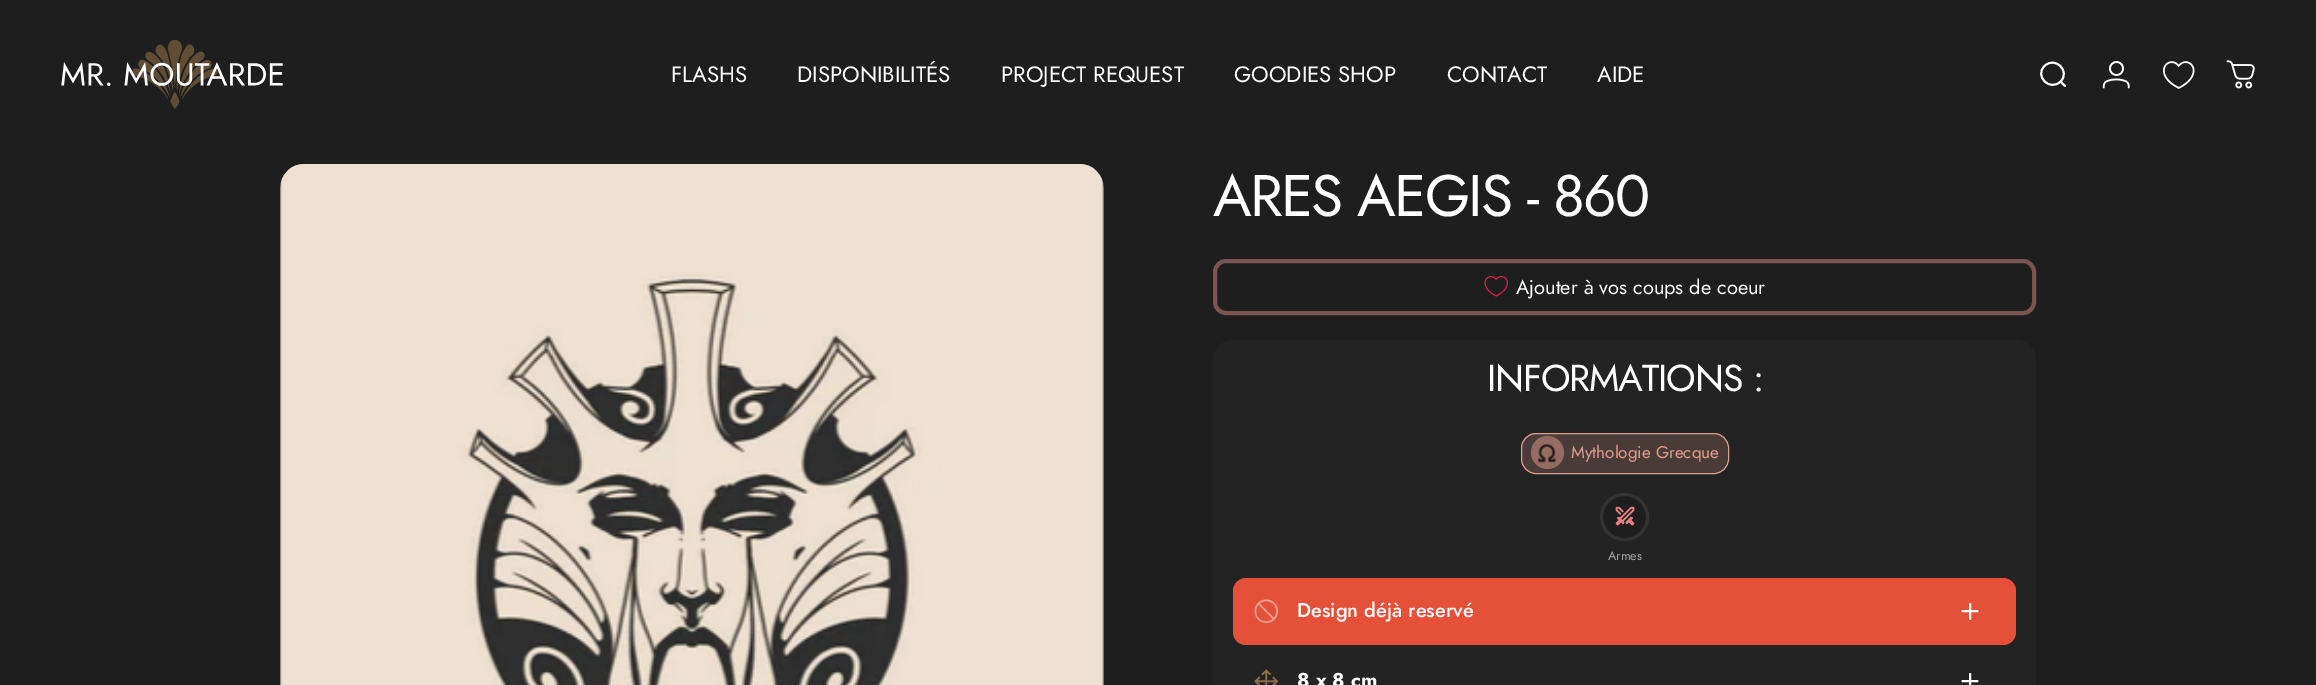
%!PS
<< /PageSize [2316 685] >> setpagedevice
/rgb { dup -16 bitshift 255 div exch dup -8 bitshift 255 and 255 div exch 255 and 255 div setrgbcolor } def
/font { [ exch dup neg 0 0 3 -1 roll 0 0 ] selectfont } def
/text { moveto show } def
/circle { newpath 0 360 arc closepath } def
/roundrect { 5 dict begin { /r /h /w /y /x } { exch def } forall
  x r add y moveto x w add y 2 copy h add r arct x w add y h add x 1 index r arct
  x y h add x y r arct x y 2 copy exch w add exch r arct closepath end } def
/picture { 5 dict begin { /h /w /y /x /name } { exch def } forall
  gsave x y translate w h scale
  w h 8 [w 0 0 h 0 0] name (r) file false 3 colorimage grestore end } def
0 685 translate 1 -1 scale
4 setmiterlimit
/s1 { /Jost-Regular 22.25 font 16#FFFFFF rgb } def
/s2 { /Jost-Regular 20 font 16#FFFFFF rgb } def
/s3 { /Jost-Regular 17 font 16#E09C8B rgb } def
/s4 { /Jost-Regular 12.5 font 16#AAAAAA rgb } def
/s5 { /Jost-Medium 20 font 16#FFFFFF rgb } def
/s6 { /Jost-Bold 20 font 16#FFFFFF rgb } def
16#1E1E1E rgb
0 0 2316 685 rectfill
(pic1.raw) 61 40 222 69 picture
s1
(FLASHS) 671 82 text
(DISPONIBILITÉS) 797 82 text
(PROJECT REQUEST) 1001 82 text
(GOODIES SHOP) 1234 82 text
(CONTACT) 1447 82 text
(AIDE) 1597 82 text
1.9 setlinewidth
1 setlinecap
2065 86 moveto 2060.5 81.5 lineto 2060.5 81.5 moveto 2071 71.5 2055 55.5 2044.5 66 curveto 2034 76 2050 92 2060.5 81.5 curveto closepath stroke
(pic2.raw) 2102 61 28 28 picture
(pic3.raw) 2163 61 32 28 picture
(pic4.raw) 2226 60 29 29 picture
(pic5.raw) 280 164 824 521 picture
/Jost-Regular 58.5 font
1213 216 moveto -1.75 0 (ARES AEGIS - 860) ashow
16#7B5454 rgb
4 setlinewidth
0 setlinecap
1215 261 819 52 11 roundrect stroke
(pic6.raw) 1484 276 24 21 picture
s2
(Ajouter à vos coups de coeur) 1516 294 text
16#232323 rgb
1233 340 moveto 2016 340 lineto 2027 340 2036 349 2036 360 curveto 2036 565 lineto 1213 565 lineto 1213 360 lineto 1213 349 1222 340 1233 340 curveto closepath fill
/Jost-Regular 37.5 font
16#FFFFFF rgb
1487 391 moveto -1.1 0 (INFORMATIONS :) ashow
16#493B38 rgb
1521.5 433.5 207 40 14.5 roundrect gsave fill grestore
16#E09C8B rgb
1 setlinewidth
stroke
16#956C62 rgb
1547.5 452.5 16.5 circle fill
(pic7.raw) 1537 444 19 19 picture
s3
(Mythologie Grecque) 1571 458 text
16#1E1E1E rgb
1601.5 494.5 46 45 22.5 roundrect gsave fill grestore
16#333333 rgb
3 setlinewidth
stroke
(pic8.raw) 1615 506 20 20 picture
s4
(Armes) 1608 560 text
16#232323 rgb
1213 565 823 120 rectfill
16#E55039 rgb
1233 578 783 67 13 roundrect fill
(pic9.raw) 1254 599 25 25 picture
s5
(Design déjà reservé) 1297 617 text
1.9 setlinewidth
1 setlinecap
1 setlinejoin
1970 604 moveto 1970 619 lineto 1977.5 611 moveto 1962.5 611 lineto stroke
(pic10.raw) 1254 669 25 16 picture
s6
(8 x 8 cm) 1297 687 text
1970 674 moveto 1970 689 lineto 1977.5 681 moveto 1962.5 681 lineto stroke
showpage
